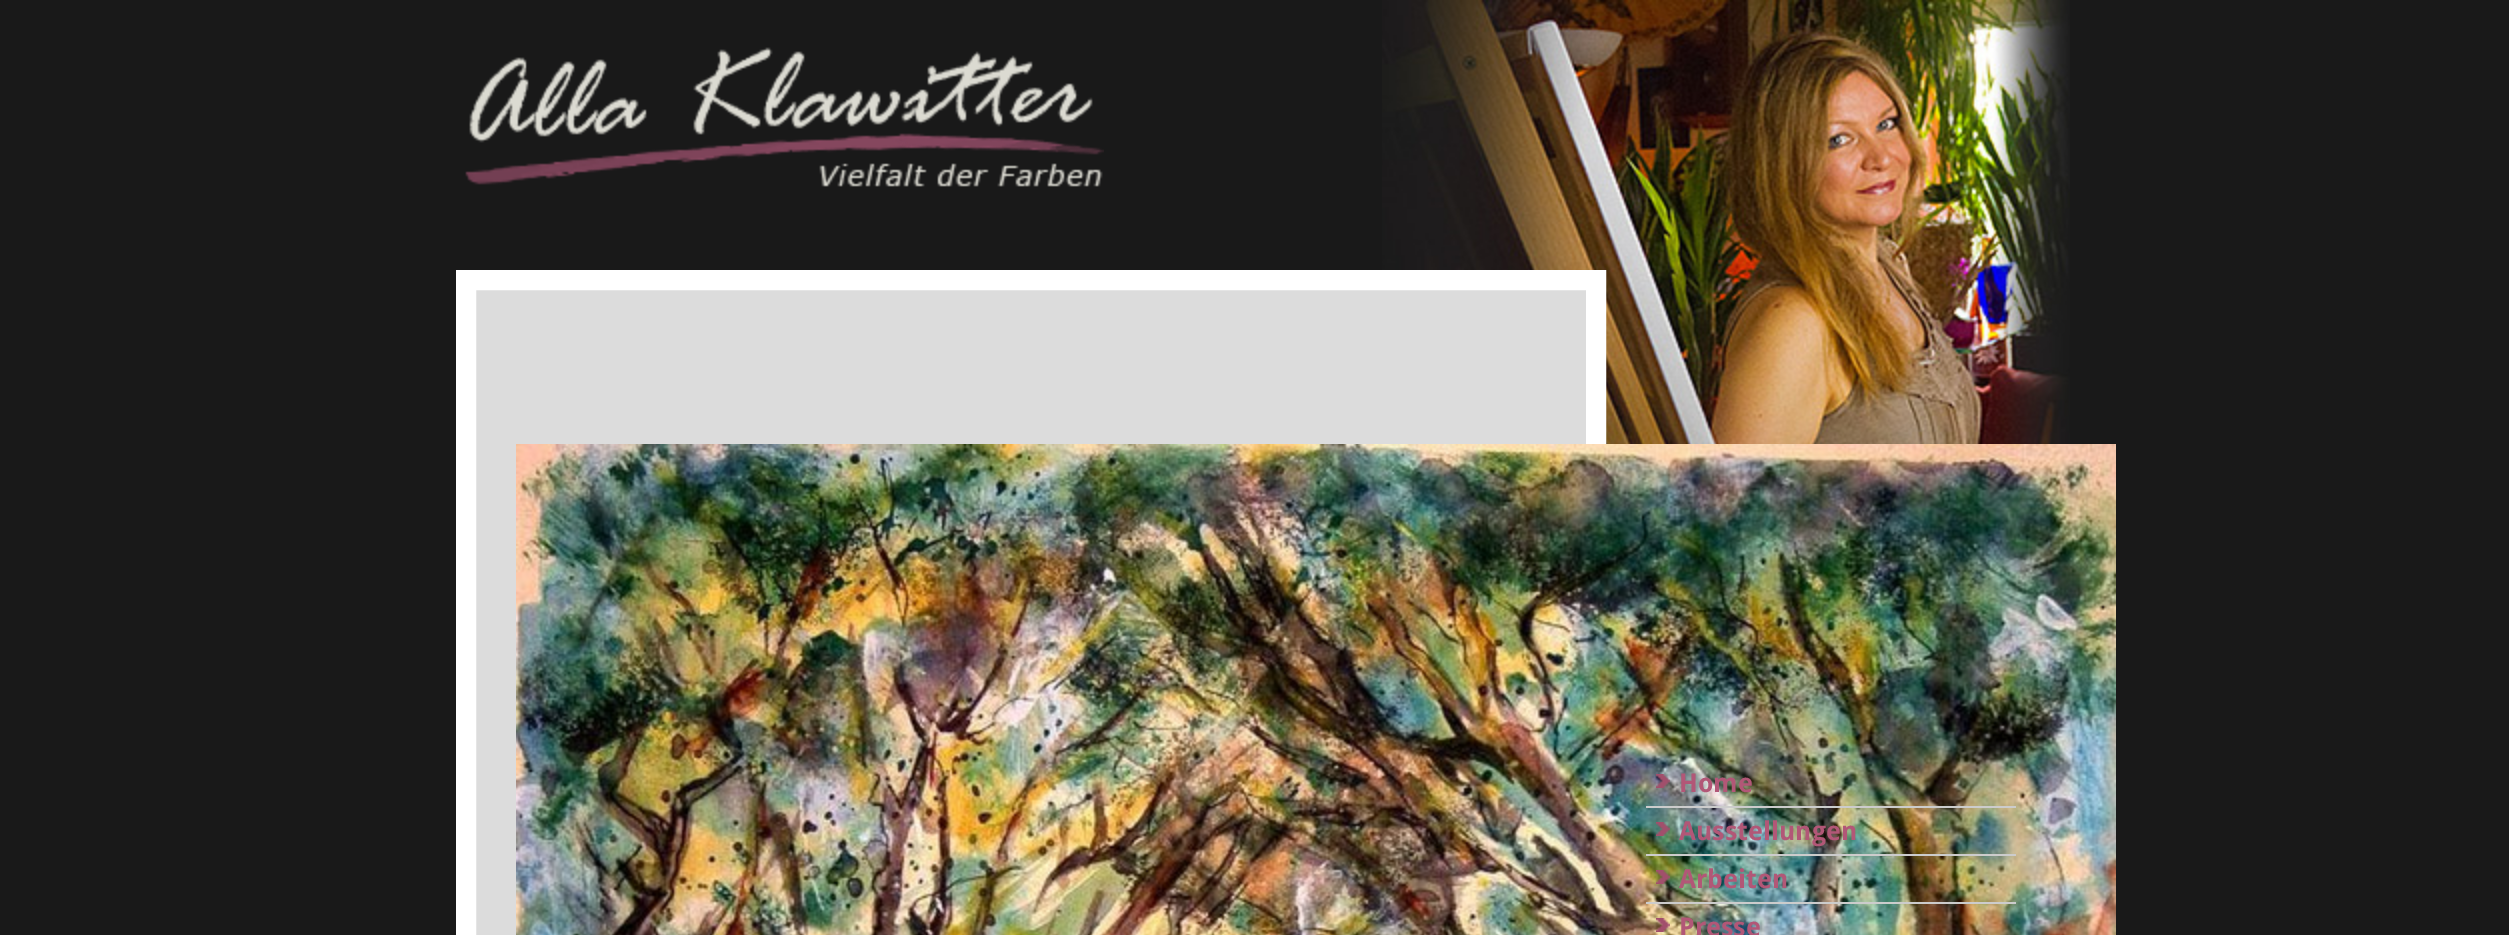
%!PS
<< /PageSize [2509 935] >> setpagedevice
/rgb { dup -16 bitshift 255 div exch dup -8 bitshift 255 and 255 div exch 255 and 255 div setrgbcolor } def
/font { [ exch dup neg 0 0 3 -1 roll 0 0 ] selectfont } def
/text { moveto show } def
/picture { 5 dict begin { /h /w /y /x /name } { exch def } forall
  gsave x y translate w h scale
  w h 8 [w 0 0 h 0 0] name (r) file false 3 colorimage grestore end } def
0 935 translate 1 -1 scale
4 setmiterlimit
/s1 { /DroidSans-Bold 26 font 16#B25777 rgb } def
16#191919 rgb
0 0 2509 935 rectfill
(pic1.raw) 1382 0 688 444 picture
(pic2.raw) 465 47 639 140 picture
16#DCDCDC rgb
466 280 moveto 1596 280 lineto 1596 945 lineto 466 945 lineto closepath gsave fill grestore
16#FFFFFF rgb
20 setlinewidth
stroke
(pic3.raw) 516 444 1600 491 picture
(pic4.raw) 1656 774 14 14 picture
s1
(Home) 1679 792 text
16#CCCCCC rgb
1646 806 370 2 rectfill
(pic5.raw) 1656 822 14 14 picture
s1
(Ausstellungen) 1679 840 text
16#CCCCCC rgb
1646 854 370 2 rectfill
(pic6.raw) 1656 870 14 14 picture
s1
(Arbeiten) 1679 888 text
16#CCCCCC rgb
1646 902 370 2 rectfill
(pic7.raw) 1656 918 14 14 picture
s1
(Presse) 1679 936 text
showpage
